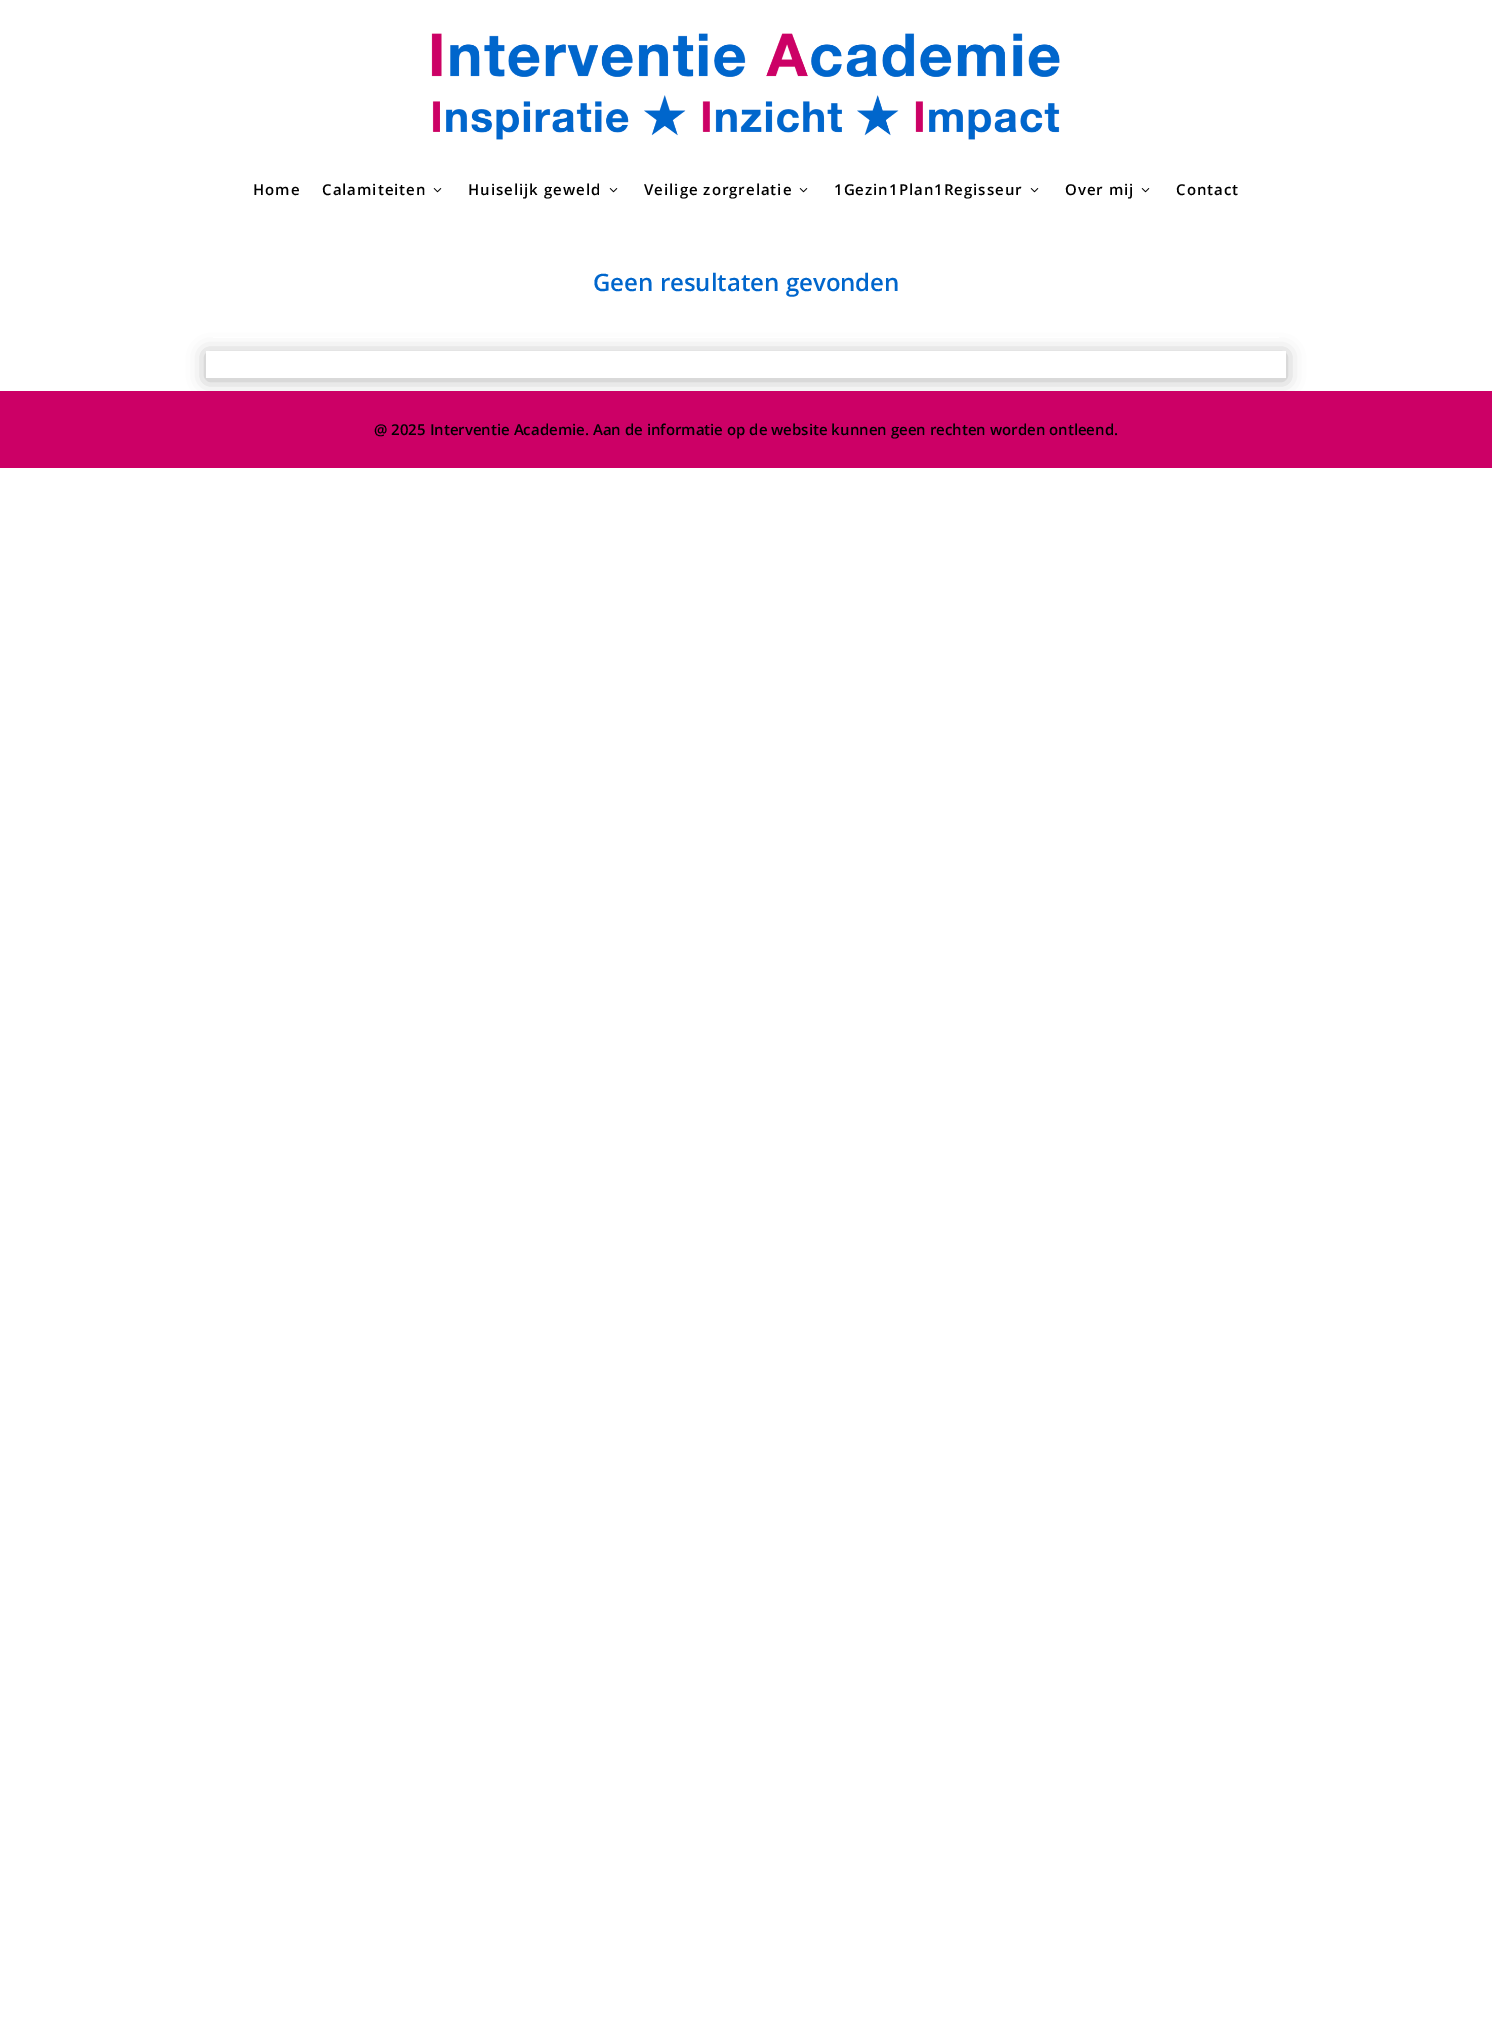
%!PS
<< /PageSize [1492 2034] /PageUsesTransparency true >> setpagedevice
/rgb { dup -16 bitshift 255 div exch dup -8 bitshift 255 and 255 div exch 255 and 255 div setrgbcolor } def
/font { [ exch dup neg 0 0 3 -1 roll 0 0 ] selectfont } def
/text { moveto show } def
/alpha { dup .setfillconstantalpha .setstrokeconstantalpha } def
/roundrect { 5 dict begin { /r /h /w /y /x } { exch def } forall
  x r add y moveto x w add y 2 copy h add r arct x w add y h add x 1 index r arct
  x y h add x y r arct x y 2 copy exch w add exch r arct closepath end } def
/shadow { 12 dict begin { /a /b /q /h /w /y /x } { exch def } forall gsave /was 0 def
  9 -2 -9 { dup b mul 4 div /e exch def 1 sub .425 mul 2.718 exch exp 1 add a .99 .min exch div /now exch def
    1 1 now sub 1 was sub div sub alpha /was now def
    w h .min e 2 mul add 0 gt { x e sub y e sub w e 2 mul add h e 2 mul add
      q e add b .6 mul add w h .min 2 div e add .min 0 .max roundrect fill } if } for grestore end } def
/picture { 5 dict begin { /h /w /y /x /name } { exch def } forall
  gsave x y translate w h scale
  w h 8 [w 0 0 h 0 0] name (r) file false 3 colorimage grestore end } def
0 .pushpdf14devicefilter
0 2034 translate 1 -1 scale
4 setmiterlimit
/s1 { /OpenSans-SemiBold 24 font 16#0066CC rgb } def
/s2 { /OpenSans-SemiBold 15 font 16#000000 rgb } def
16#FFFFFF rgb
0 0 1492 2034 rectfill
gsave
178 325 moveto 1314 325 lineto 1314 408 lineto 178 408 lineto closepath 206 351 moveto 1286 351 lineto 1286 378 lineto 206 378 lineto closepath eoclip newpath
16#000000 rgb
206 353 1080 27 0 9 0.3 shadow
grestore
213 337 1066 1 rectfill
(pic1.raw) 431 33 629 107 picture
/OpenSans-SemiBold 15 font
16#000000 rgb
253 195 moveto 1 0 (Home) ashow
322 195 moveto 1 0 (Calamiteiten) ashow
(pic2.raw) 433 188 9 5 picture
468 195 moveto 1 0 (Huiselijk geweld) ashow
(pic2.raw) 609 188 9 5 picture
644 195 moveto 1 0 (Veilige zorgrelatie) ashow
(pic2.raw) 799 188 9 5 picture
834 195 moveto 1 0 (1Gezin1Plan1Regisseur) ashow
(pic2.raw) 1030 188 9 5 picture
1065 195 moveto 1 0 (Over mij) ashow
(pic2.raw) 1141 188 9 5 picture
1176 195 moveto 1 0 (Contact) ashow
s1
(Geen resultaten gevonden) 593 291 text
16#CC0066 rgb
0 391 1492 77 rectfill
s2
(@ 2025 Interventie Academie. Aan de informatie op de website kunnen geen rechten worden ontleend.) 374 435 text
.poppdf14devicefilter showpage
